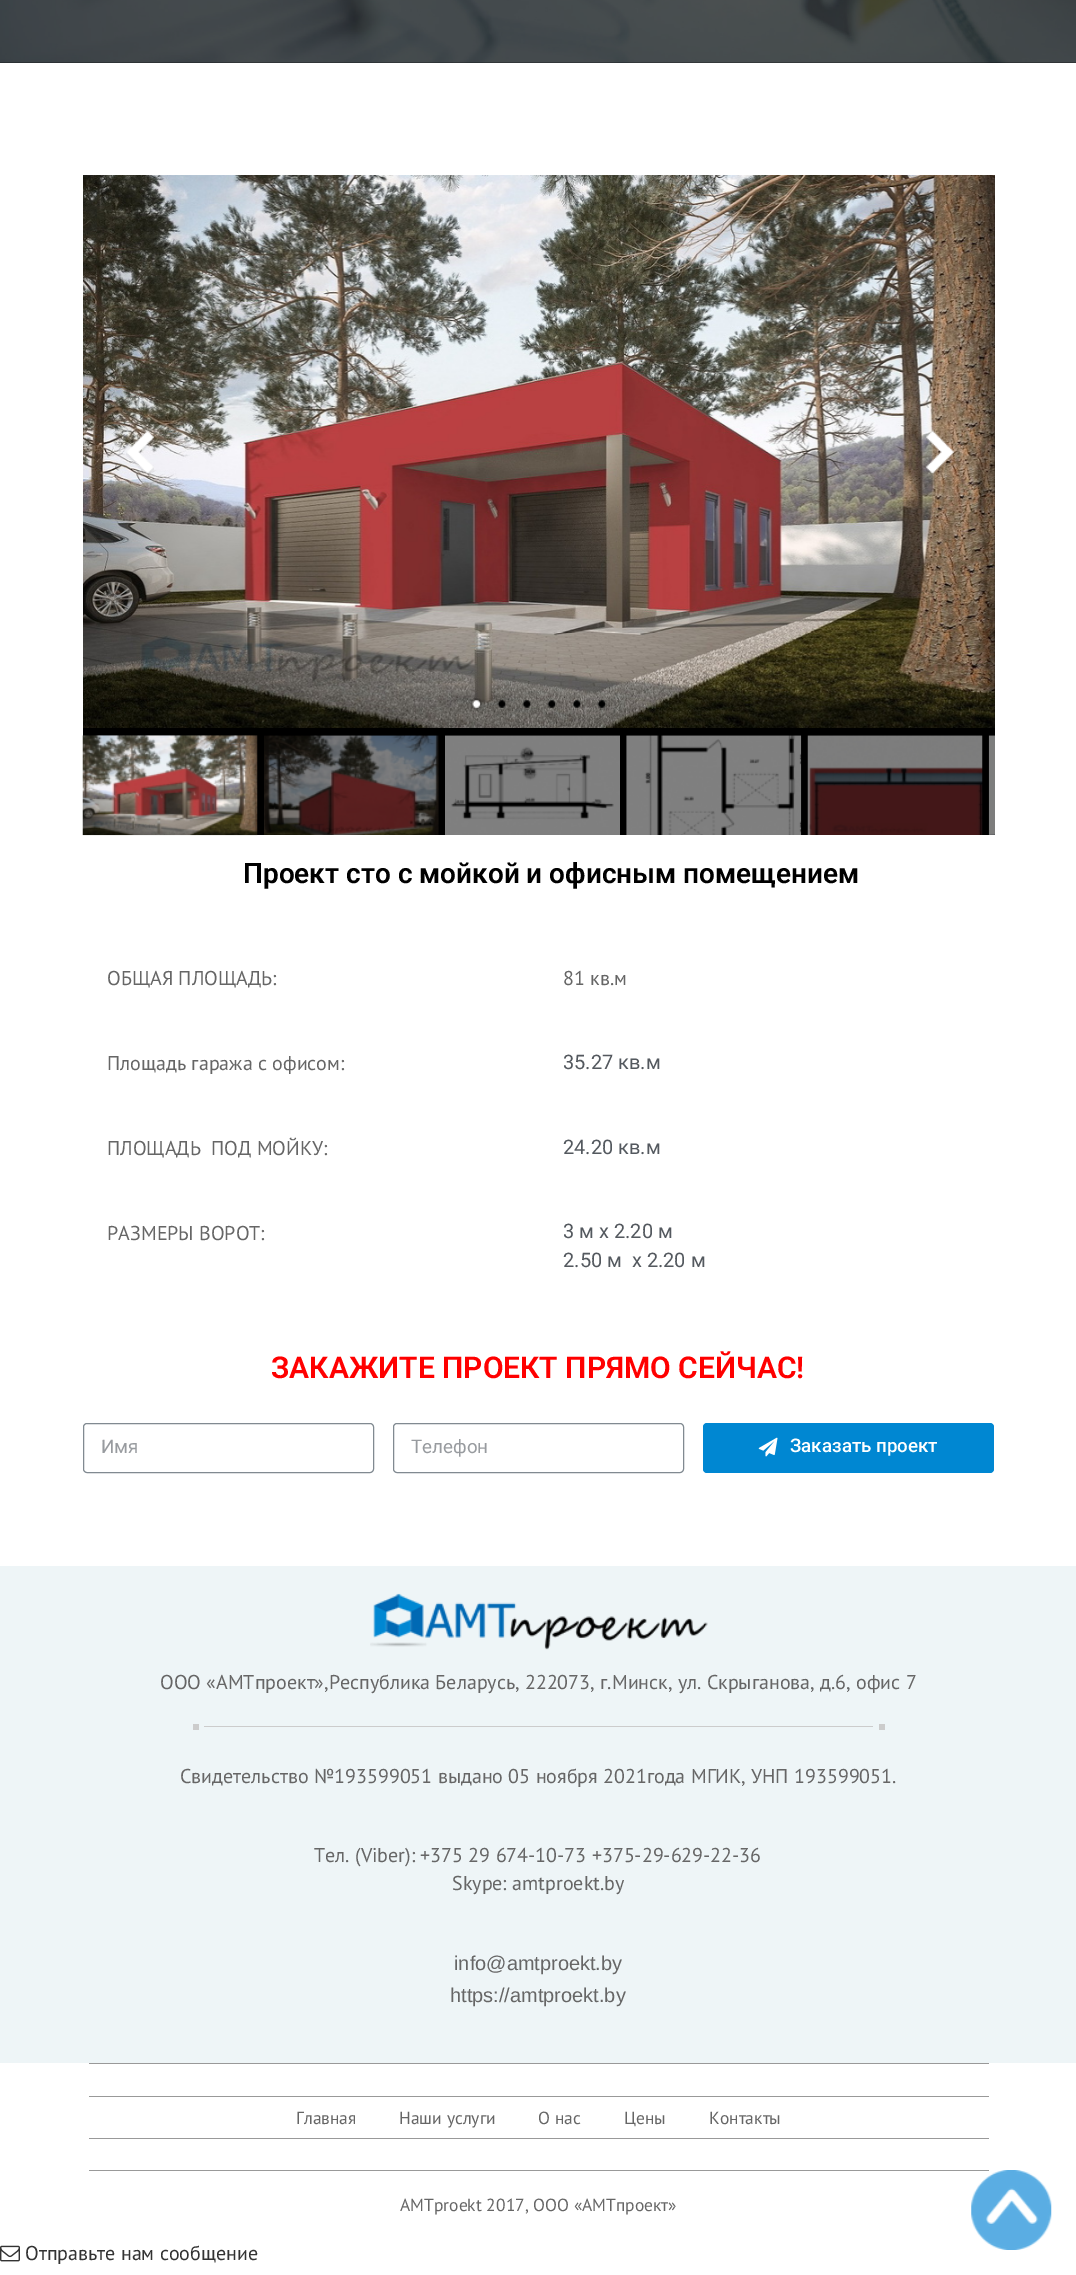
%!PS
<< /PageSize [1076 2275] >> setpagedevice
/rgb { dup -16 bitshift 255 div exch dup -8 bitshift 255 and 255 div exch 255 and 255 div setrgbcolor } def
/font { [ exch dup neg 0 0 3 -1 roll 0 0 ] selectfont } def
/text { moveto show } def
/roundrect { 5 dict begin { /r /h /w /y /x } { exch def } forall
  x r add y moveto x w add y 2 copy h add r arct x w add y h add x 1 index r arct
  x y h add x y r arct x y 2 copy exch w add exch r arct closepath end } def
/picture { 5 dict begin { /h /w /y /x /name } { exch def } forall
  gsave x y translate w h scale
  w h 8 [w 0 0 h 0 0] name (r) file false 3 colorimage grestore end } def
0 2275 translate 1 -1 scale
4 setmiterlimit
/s1 { /Roboto-SemiBold 28 font 16#000000 rgb } def
/s2 { /PTSans-Regular 20 font 16#666666 rgb } def
/s3 { /Roboto-Regular 20 font 16#54595F rgb } def
/s4 { /Roboto-SemiBold 30 font 16#FF0000 rgb } def
/s5 { /Roboto-Regular 18.75 font 16#989B9F rgb } def
/s6 { /Roboto-Medium 18.75 font 16#FFFFFF rgb } def
/s7 { /LiberationSans-Regular 20 font 16#666666 rgb } def
/s8 { /PTSans-Regular 17.5 font 16#666666 rgb } def
/s9 { /PTSans-Regular 20 font 16#333333 rgb } def
16#FFFFFF rgb
0 0 1076 2275 rectfill
(pic1.raw) 0 0 1076 63 picture
16#000000 rgb
83 175 912 660 rectfill
(pic2.raw) 83 175 912 553 picture
(pic3.raw) 126 430 28 45 picture
(pic4.raw) 926 430 28 45 picture
(pic5.raw) 470 698 13 13 picture
(pic6.raw) 497 700 10 8 picture
(pic7.raw) 522 700 10 8 picture
(pic8.raw) 547 700 10 8 picture
(pic9.raw) 572 700 10 8 picture
(pic10.raw) 597 700 10 8 picture
(pic11.raw) 82 735 176 101 picture
(pic12.raw) 264 735 175 100 picture
(pic13.raw) 445 735 175 100 picture
(pic14.raw) 626 735 176 100 picture
(pic15.raw) 807 735 176 100 picture
(pic16.raw) 988 735 7 100 picture
s1
(Проект сто с мойкой и офисным помещением) 243 883 text
s2
(ОБЩАЯ ПЛОЩАДЬ:) 107 985 text
(81 кв.м) 563 985 text
(Площадь гаража с офисом:) 107 1070 text
s3
(35.27 кв.м) 563 1069 text
s2
(ПЛОЩАДЬ) 107 1155 text
(ПОД МОЙКУ:) 211 1155 text
s3
(24.20 кв.м) 563 1154 text
s2
(РАЗМЕРЫ ВОРОТ:) 107 1240 text
s3
(3 м х 2.20 м) 563 1238 text
(2.50 м  x 2.20 м) 563 1267 text
s4
(ЗАКАЖИТЕ ПРОЕКТ ПРЯМО СЕЙЧАС!) 271 1378 text
16#818A91 rgb
83.5 1423.5 290 49 3.5 roundrect stroke
s5
(Имя) 101 1453 text
16#818A91 rgb
393.5 1423.5 290 49 3.5 roundrect stroke
s5
(Телефон) 411 1453 text
16#0087D2 rgb
703 1423 291 50 4 roundrect fill
(pic17.raw) 758 1437 20 20 picture
s6
(Заказать проект) 790 1452 text
16#EEF5F7 rgb
0 1566 1076 497 rectfill
(pic18.raw) 370 1593 338 57 picture
s2
(ООО «АМТпроект»,Республика Беларусь, 222073, г.Минск, ул. Скрыганова, д.6, офис 7) 160 1689 text
16#CCCCCC rgb
879 1724 6 6 rectfill
193 1724 6 6 rectfill
204 1726 669 1 rectfill
s2
(Свидетельство №193599051 выдано 05 ноября 2021года МГИК, УНП 193599051.) 180 1783 text
(Тел. \(Viber\): +375 29 674-10-73 +375-29-629-22-36) 314 1862 text
(Skype: amtproekt.by) 452 1890 text
s7
(info@amtproekt.by) 454 1970 text
(https://amtproekt.by) 450 2002 text
16#999999 rgb
89 2063 900 1 rectfill
89 2170 900 1 rectfill
89 2096 900 1 rectfill
89 2138 900 1 rectfill
s8
(Главная) 296 2124 text
(Наши услуги) 399 2124 text
(О нас) 538 2124 text
(Цены) 624 2124 text
(Контакты) 709 2124 text
(AMTproekt 2017, ООО «АМТпроект») 400 2211 text
(pic19.raw) 971 2170 81 80 picture
(pic20.raw) 0 2245 20 17 picture
s9
(Отправьте нам сообщение) 25 2260 text
showpage
